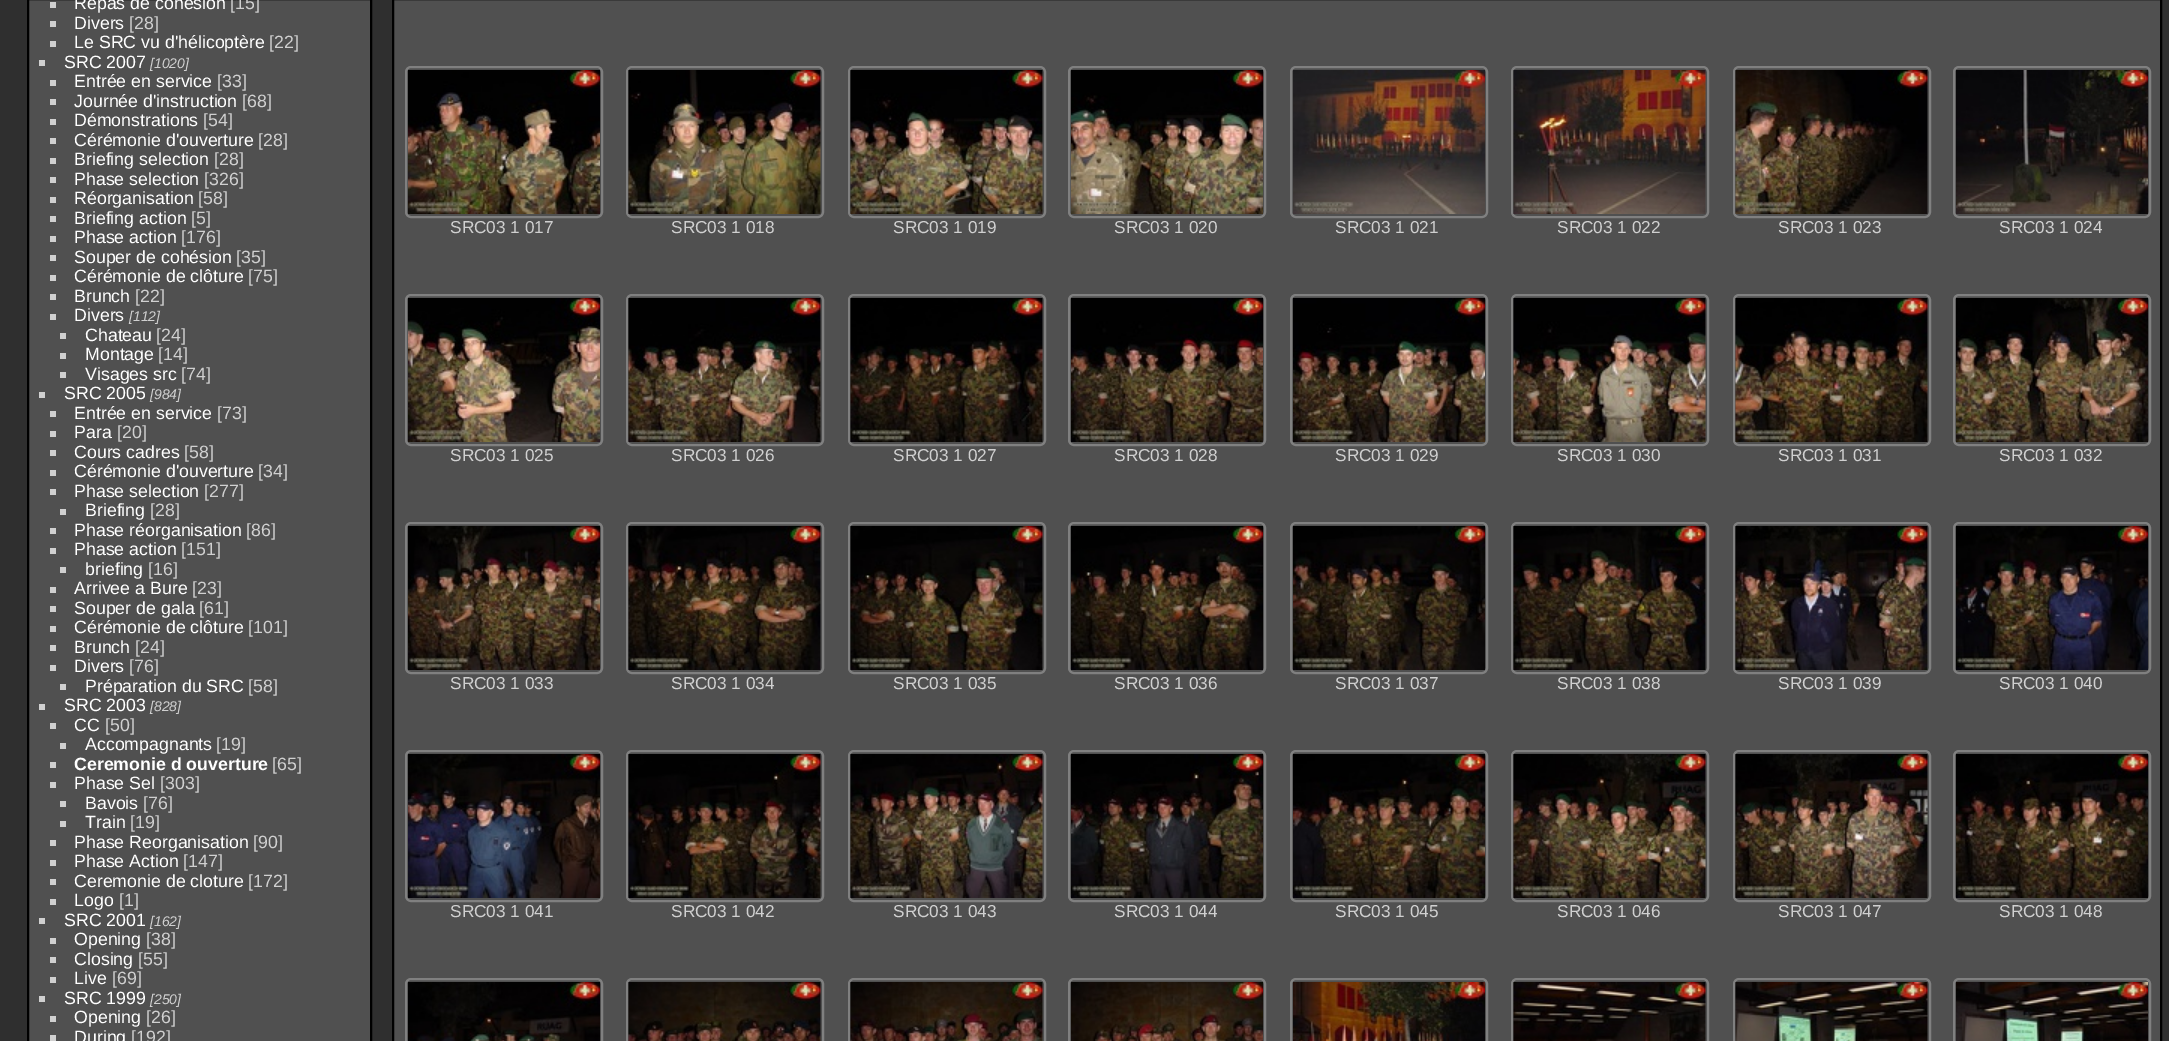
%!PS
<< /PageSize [2169 1041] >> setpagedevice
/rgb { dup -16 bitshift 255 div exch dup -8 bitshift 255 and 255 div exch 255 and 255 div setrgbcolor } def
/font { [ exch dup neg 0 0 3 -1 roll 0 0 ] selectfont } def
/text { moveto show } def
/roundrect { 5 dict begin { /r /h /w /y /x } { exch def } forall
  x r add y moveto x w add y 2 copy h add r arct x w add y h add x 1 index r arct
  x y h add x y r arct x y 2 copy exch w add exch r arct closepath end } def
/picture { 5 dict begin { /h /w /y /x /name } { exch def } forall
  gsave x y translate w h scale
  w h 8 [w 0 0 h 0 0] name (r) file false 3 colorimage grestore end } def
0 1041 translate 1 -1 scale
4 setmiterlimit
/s1 { /LiberationSans-Regular 17.75 font 16#FFFFFF rgb } def
/s2 { /LiberationSans-Regular 17.75 font 16#D0D0D0 rgb } def
/s3 { /LiberationSans-Italic 14 font 16#D0D0D0 rgb } def
/s4 { /LiberationSans-Bold 17.75 font 16#FFFFFF rgb } def
/s5 { /LiberationSans-Regular 17.25 font 16#D0D0D0 rgb } def
16#2F2F2F rgb
0 0 2169 1041 rectfill
16#505050 rgb
28 -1 moveto 371 -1 lineto 371 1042 lineto 28 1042 lineto closepath gsave fill grestore
16#000000 rgb
2 setlinewidth
stroke
16#D0D0D0 rgb
50 2 6 6 rectfill
s1
(Repas de cohésion) 74 9 text
s2
([15]) 230 9 text
50 21 6 6 rectfill
s1
(Divers) 74 29 text
s2
([28]) 129 29 text
50 41 6 6 rectfill
s1
(Le SRC vu d'hélicoptère) 74 48 text
s2
([22]) 269 48 text
39 60 6 6 rectfill
s1
(SRC 2007) 64 68 text
s3
([1020]) 150 68 text
50 80 6 6 rectfill
s1
(Entrée en service) 74 87 text
s2
([33]) 217 87 text
50 99 6 6 rectfill
s1
(Journée d'instruction) 74 107 text
s2
([68]) 242 107 text
50 119 6 6 rectfill
s1
(Démonstrations) 74 126 text
s2
([54]) 203 126 text
50 138 6 6 rectfill
s1
(Cérémonie d'ouverture) 74 146 text
s2
([28]) 258 146 text
50 158 6 6 rectfill
s1
(Briefing selection) 74 165 text
s2
([28]) 214 165 text
50 177 6 6 rectfill
s1
(Phase selection) 74 185 text
s2
([326]) 204 185 text
50 197 6 6 rectfill
s1
(Réorganisation) 74 204 text
s2
([58]) 198 204 text
50 216 6 6 rectfill
s1
(Briefing action) 74 224 text
s2
([5]) 191 224 text
50 236 6 6 rectfill
s1
(Phase action) 74 243 text
s2
([176]) 181 243 text
50 255 6 6 rectfill
s1
(Souper de cohésion) 74 263 text
s2
([35]) 236 263 text
50 275 6 6 rectfill
s1
(Cérémonie de clôture) 74 282 text
s2
([75]) 248 282 text
50 294 6 6 rectfill
s1
(Brunch) 74 302 text
s2
([22]) 135 302 text
50 314 6 6 rectfill
s1
(Divers) 74 321 text
s3
([112]) 129 321 text
60 333 6 6 rectfill
s1
(Chateau) 85 341 text
s2
([24]) 156 341 text
60 353 6 6 rectfill
s1
(Montage) 85 360 text
s2
([14]) 158 360 text
60 372 6 6 rectfill
s1
(Visages src) 85 380 text
s2
([74]) 181 380 text
39 392 6 6 rectfill
s1
(SRC 2005) 64 399 text
s3
([984]) 150 399 text
50 411 6 6 rectfill
s1
(Entrée en service) 74 419 text
s2
([73]) 217 419 text
50 431 6 6 rectfill
s1
(Para) 74 438 text
s2
([20]) 117 438 text
50 450 6 6 rectfill
s1
(Cours cadres) 74 458 text
s2
([58]) 184 458 text
50 470 6 6 rectfill
s1
(Cérémonie d'ouverture) 74 477 text
s2
([34]) 258 477 text
50 489 6 6 rectfill
s1
(Phase selection) 74 497 text
s2
([277]) 204 497 text
60 509 6 6 rectfill
s1
(Briefing) 85 516 text
s2
([28]) 150 516 text
50 528 6 6 rectfill
s1
(Phase réorganisation) 74 536 text
s2
([86]) 246 536 text
50 548 6 6 rectfill
s1
(Phase action) 74 555 text
s2
([151]) 181 555 text
60 567 6 6 rectfill
s1
(briefing) 85 575 text
s2
([16]) 148 575 text
50 587 6 6 rectfill
s1
(Arrivee a Bure) 74 594 text
s2
([23]) 192 594 text
50 606 6 6 rectfill
s1
(Souper de gala) 74 614 text
s2
([61]) 199 614 text
50 626 6 6 rectfill
s1
(Cérémonie de clôture) 74 633 text
s2
([101]) 248 633 text
50 645 6 6 rectfill
s1
(Brunch) 74 653 text
s2
([24]) 135 653 text
50 665 6 6 rectfill
s1
(Divers) 74 672 text
s2
([76]) 129 672 text
60 684 6 6 rectfill
s1
(Préparation du SRC) 85 692 text
s2
([58]) 248 692 text
39 704 6 6 rectfill
s1
(SRC 2003) 64 711 text
s3
([828]) 150 711 text
50 723 6 6 rectfill
s1
(CC) 74 731 text
s2
([50]) 105 731 text
60 743 6 6 rectfill
s1
(Accompagnants) 85 750 text
s2
([19]) 216 750 text
50 762 6 6 rectfill
s4
(Ceremonie d ouverture) 74 770 text
s2
([65]) 272 770 text
50 782 6 6 rectfill
s1
(Phase Sel) 74 789 text
s2
([303]) 160 789 text
60 801 6 6 rectfill
s1
(Bavois) 85 809 text
s2
([76]) 143 809 text
60 821 6 6 rectfill
s1
(Train) 85 828 text
s2
([19]) 130 828 text
50 840 6 6 rectfill
s1
(Phase Reorganisation) 74 848 text
s2
([90]) 253 848 text
50 860 6 6 rectfill
s1
(Phase Action) 74 867 text
s2
([147]) 183 867 text
50 879 6 6 rectfill
s1
(Ceremonie de cloture) 74 887 text
s2
([172]) 248 887 text
50 899 6 6 rectfill
s1
(Logo) 74 906 text
s2
([1]) 119 906 text
39 918 6 6 rectfill
s1
(SRC 2001) 64 926 text
s3
([162]) 150 926 text
50 938 6 6 rectfill
s1
(Opening) 74 945 text
s2
([38]) 146 945 text
50 957 6 6 rectfill
s1
(Closing) 74 965 text
s2
([55]) 138 965 text
50 977 6 6 rectfill
s1
(Live) 74 984 text
s2
([69]) 112 984 text
39 996 6 6 rectfill
s1
(SRC 1999) 64 1004 text
s3
([250]) 150 1004 text
50 1016 6 6 rectfill
s1
(Opening) 74 1023 text
s2
([26]) 146 1023 text
50 1035 6 6 rectfill
s1
(During) 74 1043 text
s2
([192]) 131 1043 text
16#505050 rgb
393 -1 moveto 2161 -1 lineto 2161 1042 lineto 393 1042 lineto closepath gsave fill grestore
16#000000 rgb
stroke
16#808080 rgb
406 67 196 150 5 roundrect stroke
(pic1.raw) 408 70 192 144 picture
s5
(SRC03 1 017) 450 233 text
16#808080 rgb
627 67 196 150 5 roundrect stroke
(pic2.raw) 628 70 193 144 picture
s5
(SRC03 1 018) 671 233 text
16#808080 rgb
849 67 196 150 5 roundrect stroke
(pic3.raw) 850 70 193 144 picture
s5
(SRC03 1 019) 893 233 text
16#808080 rgb
1069 67 196 150 5 roundrect stroke
(pic4.raw) 1071 70 192 144 picture
s5
(SRC03 1 020) 1114 233 text
16#808080 rgb
1291 67 196 150 5 roundrect stroke
(pic5.raw) 1293 70 192 144 picture
s5
(SRC03 1 021) 1335 233 text
16#808080 rgb
1512 67 196 150 5 roundrect stroke
(pic6.raw) 1513 70 193 144 picture
s5
(SRC03 1 022) 1557 233 text
16#808080 rgb
1734 67 196 150 5 roundrect stroke
(pic7.raw) 1735 70 193 144 picture
s5
(SRC03 1 023) 1778 233 text
16#808080 rgb
1954 67 196 150 5 roundrect stroke
(pic8.raw) 1956 70 192 144 picture
s5
(SRC03 1 024) 1999 233 text
16#808080 rgb
406 295 196 150 5 roundrect stroke
(pic9.raw) 408 298 192 144 picture
s5
(SRC03 1 025) 450 461 text
16#808080 rgb
627 295 196 150 5 roundrect stroke
(pic10.raw) 628 298 193 144 picture
s5
(SRC03 1 026) 671 461 text
16#808080 rgb
849 295 196 150 5 roundrect stroke
(pic11.raw) 850 298 193 144 picture
s5
(SRC03 1 027) 893 461 text
16#808080 rgb
1069 295 196 150 5 roundrect stroke
(pic12.raw) 1071 298 192 144 picture
s5
(SRC03 1 028) 1114 461 text
16#808080 rgb
1291 295 196 150 5 roundrect stroke
(pic13.raw) 1293 298 192 144 picture
s5
(SRC03 1 029) 1335 461 text
16#808080 rgb
1512 295 196 150 5 roundrect stroke
(pic14.raw) 1513 298 193 144 picture
s5
(SRC03 1 030) 1557 461 text
16#808080 rgb
1734 295 196 150 5 roundrect stroke
(pic15.raw) 1735 298 193 144 picture
s5
(SRC03 1 031) 1778 461 text
16#808080 rgb
1954 295 196 150 5 roundrect stroke
(pic16.raw) 1956 298 192 144 picture
s5
(SRC03 1 032) 1999 461 text
16#808080 rgb
406 523 196 150 5 roundrect stroke
(pic17.raw) 408 526 192 144 picture
s5
(SRC03 1 033) 450 689 text
16#808080 rgb
627 523 196 150 5 roundrect stroke
(pic18.raw) 628 526 193 144 picture
s5
(SRC03 1 034) 671 689 text
16#808080 rgb
849 523 196 150 5 roundrect stroke
(pic19.raw) 850 526 193 144 picture
s5
(SRC03 1 035) 893 689 text
16#808080 rgb
1069 523 196 150 5 roundrect stroke
(pic20.raw) 1071 526 192 144 picture
s5
(SRC03 1 036) 1114 689 text
16#808080 rgb
1291 523 196 150 5 roundrect stroke
(pic21.raw) 1293 526 192 144 picture
s5
(SRC03 1 037) 1335 689 text
16#808080 rgb
1512 523 196 150 5 roundrect stroke
(pic22.raw) 1513 526 193 144 picture
s5
(SRC03 1 038) 1557 689 text
16#808080 rgb
1734 523 196 150 5 roundrect stroke
(pic23.raw) 1735 526 193 144 picture
s5
(SRC03 1 039) 1778 689 text
16#808080 rgb
1954 523 196 150 5 roundrect stroke
(pic24.raw) 1956 526 192 144 picture
s5
(SRC03 1 040) 1999 689 text
16#808080 rgb
406 751 196 150 5 roundrect stroke
(pic25.raw) 408 754 192 144 picture
s5
(SRC03 1 041) 450 917 text
16#808080 rgb
627 751 196 150 5 roundrect stroke
(pic26.raw) 628 754 193 144 picture
s5
(SRC03 1 042) 671 917 text
16#808080 rgb
849 751 196 150 5 roundrect stroke
(pic27.raw) 850 754 193 144 picture
s5
(SRC03 1 043) 893 917 text
16#808080 rgb
1069 751 196 150 5 roundrect stroke
(pic28.raw) 1071 754 192 144 picture
s5
(SRC03 1 044) 1114 917 text
16#808080 rgb
1291 751 196 150 5 roundrect stroke
(pic29.raw) 1293 754 192 144 picture
s5
(SRC03 1 045) 1335 917 text
16#808080 rgb
1512 751 196 150 5 roundrect stroke
(pic30.raw) 1513 754 193 144 picture
s5
(SRC03 1 046) 1557 917 text
16#808080 rgb
1734 751 196 150 5 roundrect stroke
(pic31.raw) 1735 754 193 144 picture
s5
(SRC03 1 047) 1778 917 text
16#808080 rgb
1954 751 196 150 5 roundrect stroke
(pic32.raw) 1956 754 192 144 picture
s5
(SRC03 1 048) 1999 917 text
16#808080 rgb
406 979 196 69 5 roundrect stroke
(pic33.raw) 408 982 192 59 picture
627 979 196 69 5 roundrect stroke
(pic34.raw) 628 982 193 59 picture
849 979 196 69 5 roundrect stroke
(pic35.raw) 850 982 193 59 picture
1069 979 196 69 5 roundrect stroke
(pic36.raw) 1071 982 192 59 picture
1291 979 196 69 5 roundrect stroke
(pic37.raw) 1293 982 192 59 picture
1512 979 196 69 5 roundrect stroke
(pic38.raw) 1513 982 193 59 picture
1734 979 196 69 5 roundrect stroke
(pic39.raw) 1735 982 193 59 picture
1954 979 196 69 5 roundrect stroke
(pic40.raw) 1956 982 192 59 picture
showpage
